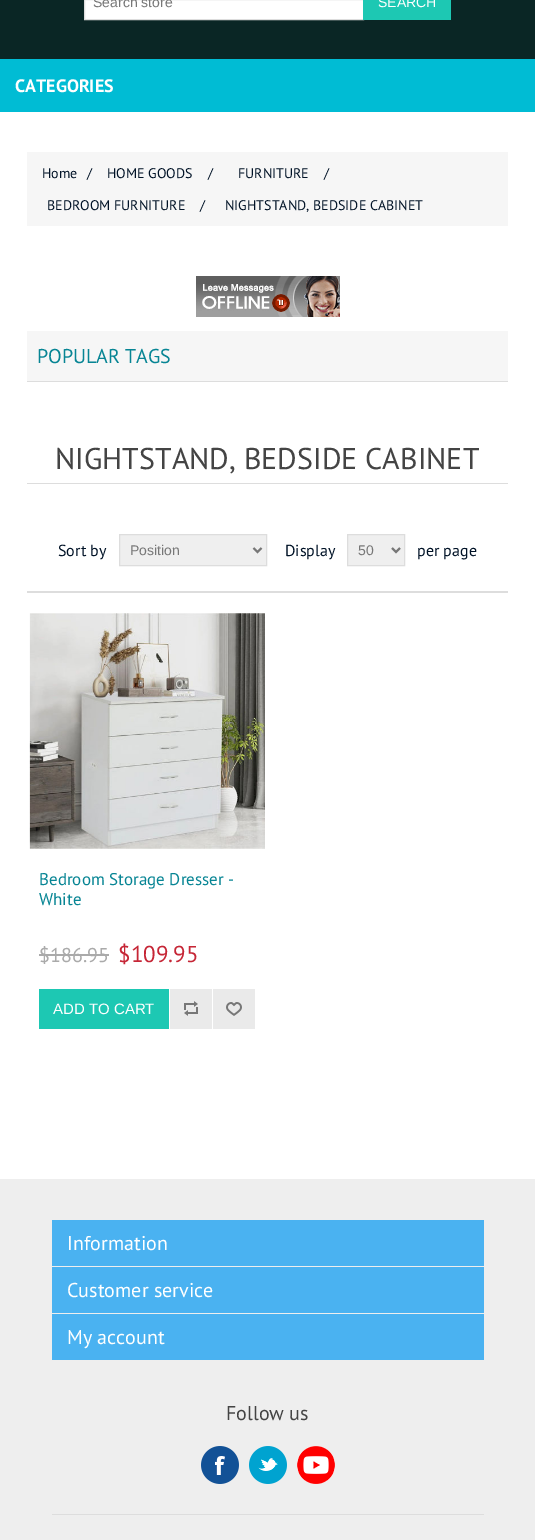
%!PS
<< /PageSize [535 1540] >> setpagedevice
/rgb { dup -16 bitshift 255 div exch dup -8 bitshift 255 and 255 div exch 255 and 255 div setrgbcolor } def
/font { [ exch dup neg 0 0 3 -1 roll 0 0 ] selectfont } def
/text { moveto show } def
/picture { 5 dict begin { /h /w /y /x /name } { exch def } forall
  gsave x y translate w h scale
  w h 8 [w 0 0 h 0 0] name (r) file false 3 colorimage grestore end } def
0 1540 translate 1 -1 scale
4 setmiterlimit
/s1 { /LiberationSans-Regular 14 font 16#777777 rgb } def
/s2 { /LiberationSans-Regular 14 font 16#FFFFFF rgb } def
/s3 { /PTSans-Bold 18 font 16#FFFFFF rgb } def
/s4 { /PTSans-Regular 14 font 16#011327 rgb } def
/s5 { /PTSans-Regular 20 font 16#078594 rgb } def
/s6 { /PTSans-Regular 30 font 16#444444 rgb } def
/s7 { /PTSans-Regular 16 font 16#011327 rgb } def
/s8 { /PTSans-Regular 17 font 16#078594 rgb } def
/s9 { /PTSans-Regular 20 font 16#AAAAAA rgb } def
/s10 { /PTSans-Regular 23 font 16#C62636 rgb } def
/s11 { /LiberationSans-Regular 15 font 16#FFFFFF rgb } def
/s12 { /PTSans-Regular 20 font 16#FFFFFF rgb } def
/s13 { /PTSans-Regular 20 font 16#444444 rgb } def
16#FFFFFF rgb
0 0 535 1540 rectfill
16#0A2625 rgb
0 0 535 59 rectfill
16#FFFFFF rgb
84.5 -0.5 moveto 363.5 -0.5 lineto 363.5 19.5 lineto 84.5 19.5 lineto closepath gsave fill grestore
16#DDDDDD rgb
stroke
s1
(Search store) 93 7 text
16#1DC8B3 rgb
363 0 88 20 rectfill
s2
(SEARCH) 378 7 text
16#00BCD4 rgb
0 59 535 53 rectfill
s3
(CATEGORIES) 15 92 text
16#F6F6F6 rgb
27 152 481 74 rectfill
s4
(Home) 42 178 text
(/) 87 178 text
(HOME GOODS) 107 178 text
(/) 208 178 text
(FURNITURE) 238 178 text
(/) 324 178 text
(BEDROOM FURNITURE) 47 210 text
(/) 200 210 text
(NIGHTSTAND, BEDSIDE CABINET) 225 210 text
(pic1.raw) 196 276 144 41 picture
16#F6F6F6 rgb
27 331 481 50 rectfill
16#DDDDDD rgb
27 381 481 1 rectfill
s5
(POPULAR TAGS) 37 363 text
16#DDDDDD rgb
27 483 481 1 rectfill
s6
(NIGHTSTAND, BEDSIDE CABINET) 55 469 text
16#DDDDDD rgb
27 591 481 2 rectfill
s7
(Sort by) 58 556 text
16#EFEFEF rgb
119.5 534.5 moveto 266.5 534.5 lineto 266.5 565.5 lineto 119.5 565.5 lineto closepath gsave fill grestore
16#DDDDDD rgb
stroke
16#777777 rgb
2 setlinewidth
253.5 548 moveto 257.5 552 lineto 261.5 548 lineto stroke
s1
(Position) 130 555 text
s7
(Display) 285 556 text
16#EFEFEF rgb
347.5 534.5 moveto 404.5 534.5 lineto 404.5 565.5 lineto 347.5 565.5 lineto closepath gsave fill grestore
16#DDDDDD rgb
1 setlinewidth
stroke
16#777777 rgb
2 setlinewidth
392 548 moveto 396 552 lineto 400 548 lineto stroke
s1
(50) 358 555 text
s7
(per page) 417 556 text
(pic2.raw) 29 613 236 236 picture
s8
(Bedroom Storage Dresser -) 39 885 text
(White) 39 905 text
s9
($186.95) 39 962 text
39 954 70 2 rectfill
s10
($109.95) 118 962 text
16#1DC8B3 rgb
39 989 130 40 rectfill
s11
(ADD TO CART) 53 1014 text
16#EAEAEA rgb
170 989 42 40 rectfill
(pic3.raw) 184 1001 14 15 picture
213 989 42 40 rectfill
(pic4.raw) 226 1002 16 14 picture
16#EEEEEE rgb
0 1179 535 361 rectfill
16#4AB2F1 rgb
52 1220 432 46 rectfill
s12
(Information) 67 1250 text
16#4AB2F1 rgb
52 1267 432 46 rectfill
s12
(Customer service) 67 1297 text
16#4AB2F1 rgb
52 1314 432 46 rectfill
s12
(My account) 67 1344 text
s13
(Follow us) 226 1420 text
16#DDDDDD rgb
52 1514 432 1 rectfill
(pic5.raw) 201 1446 38 38 picture
(pic6.raw) 249 1446 38 38 picture
(pic7.raw) 297 1446 38 38 picture
showpage
